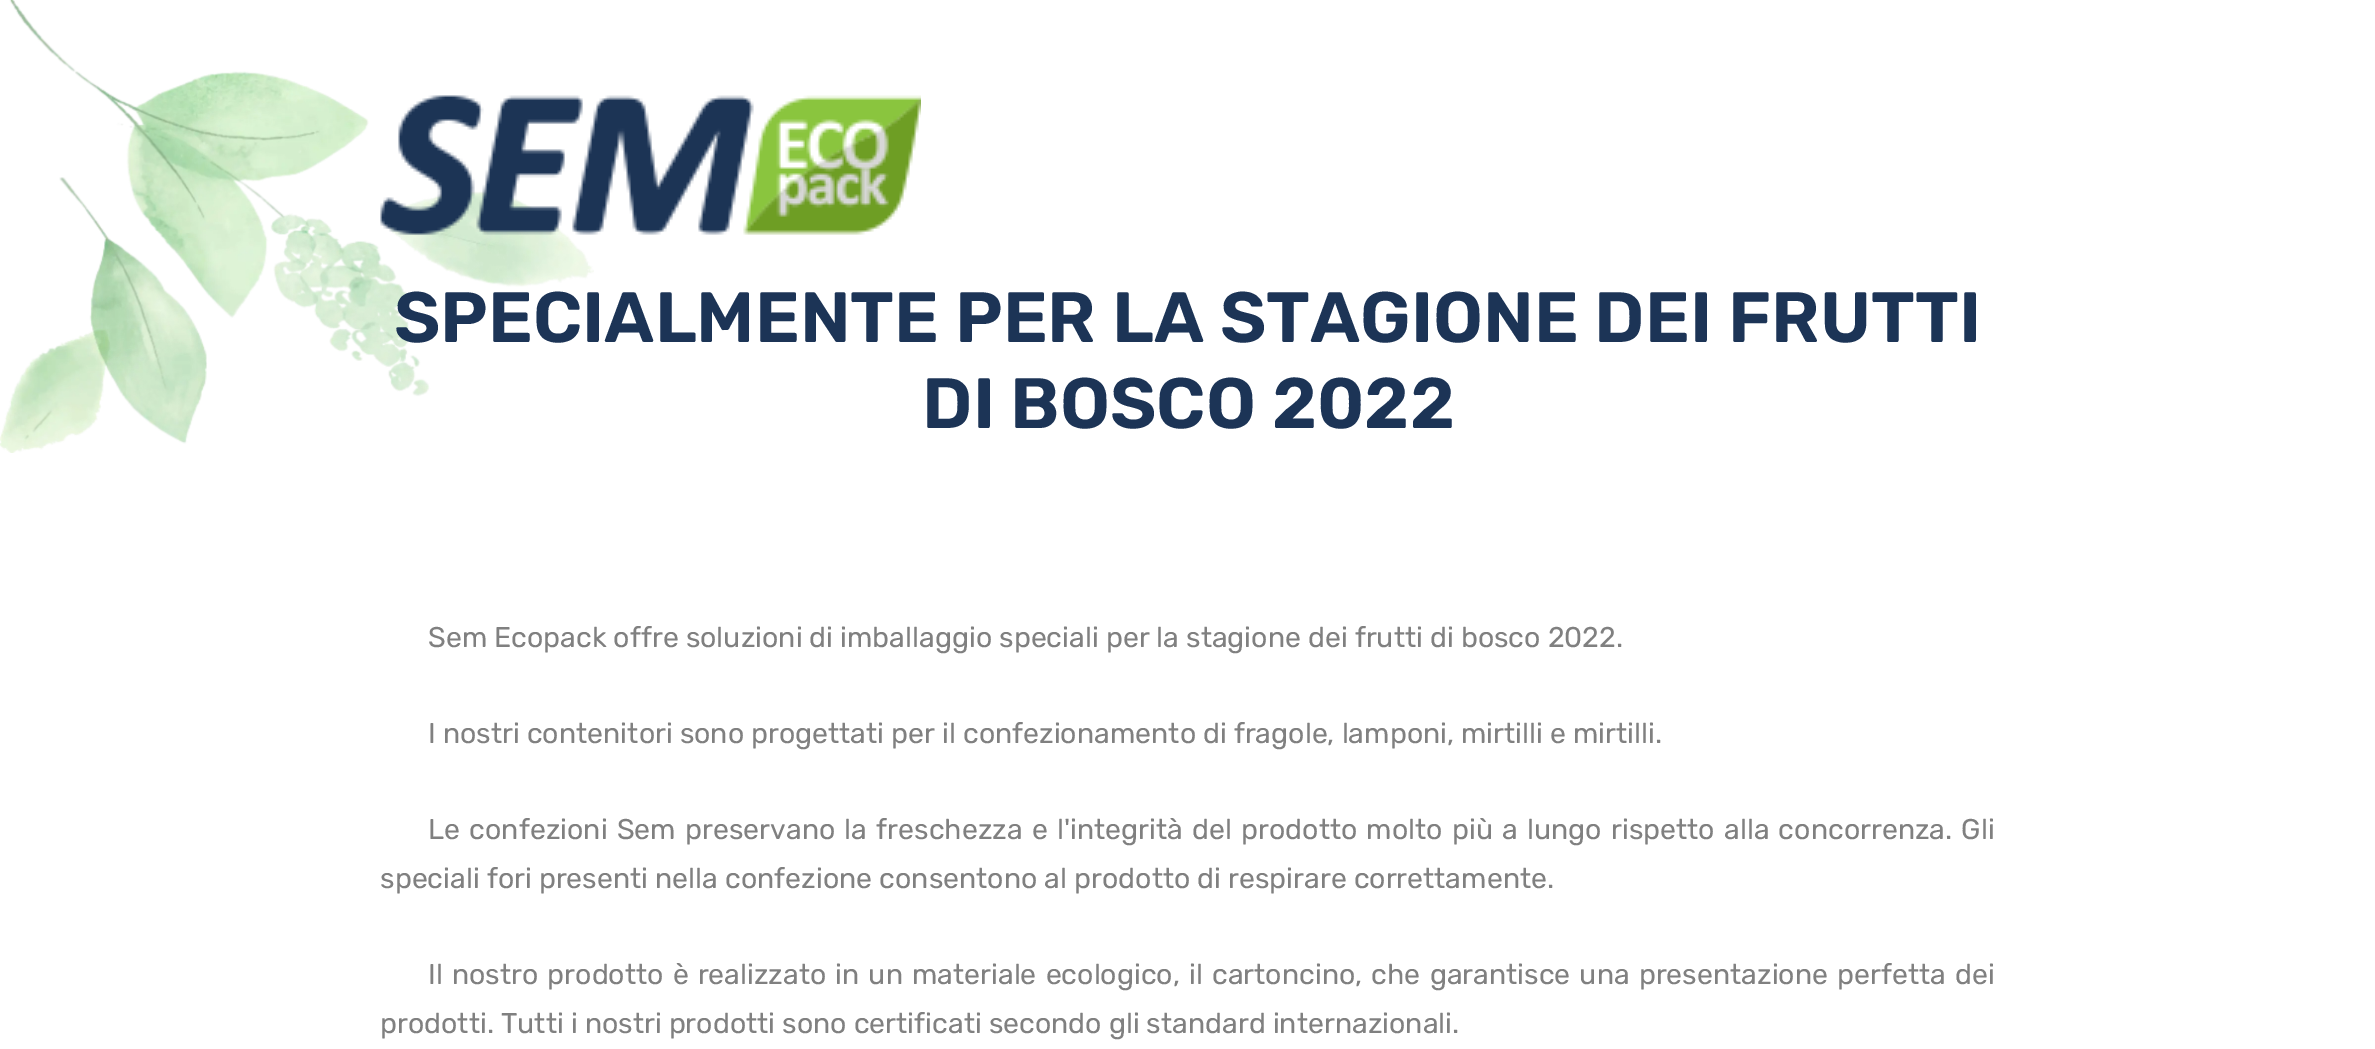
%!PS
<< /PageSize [2375 1049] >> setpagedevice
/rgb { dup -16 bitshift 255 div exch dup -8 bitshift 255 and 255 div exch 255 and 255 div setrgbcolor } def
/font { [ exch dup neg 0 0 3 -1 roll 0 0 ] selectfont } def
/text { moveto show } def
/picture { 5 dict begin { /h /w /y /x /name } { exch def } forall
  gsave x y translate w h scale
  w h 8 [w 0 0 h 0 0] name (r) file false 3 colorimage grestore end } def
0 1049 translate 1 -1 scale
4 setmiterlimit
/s1 { /Rubik-SemiBold 71.25 font 16#1C3456 rgb } def
/s2 { /Rubik-Regular 28.5 font 16#808080 rgb } def
16#FFFFFF rgb
0 0 2375 1049 rectfill
(pic2.raw) 0 0 594 453 picture
(pic1.raw) 380 95 541 140 picture
s1
(SPECIALMENTE PER LA STAGIONE DEI FRUTTI) 394 342 text
(DI BOSCO 2022) 922 428 text
s2
(Sem Ecopack offre soluzioni di imballaggio speciali per la stagione dei frutti di bosco 2022.) 428 647 text
(I nostri contenitori sono progettati per il confezionamento di fragole, lamponi, mirtilli e mirtilli.) 428 743 text
428 839 moveto 2.25 0 32 (Le confezioni Sem preservano la freschezza e l'integrità del prodotto molto più a lungo rispetto alla concorrenza. Gli) widthshow
(speciali fori presenti nella confezione consentono al prodotto di respirare correttamente.) 380 888 text
428 984 moveto 2.1 0 32 (Il nostro prodotto è realizzato in un materiale ecologico, il cartoncino, che garantisce una presentazione perfetta dei) widthshow
(prodotti. Tutti i nostri prodotti sono certificati secondo gli standard internazionali.) 380 1033 text
showpage
